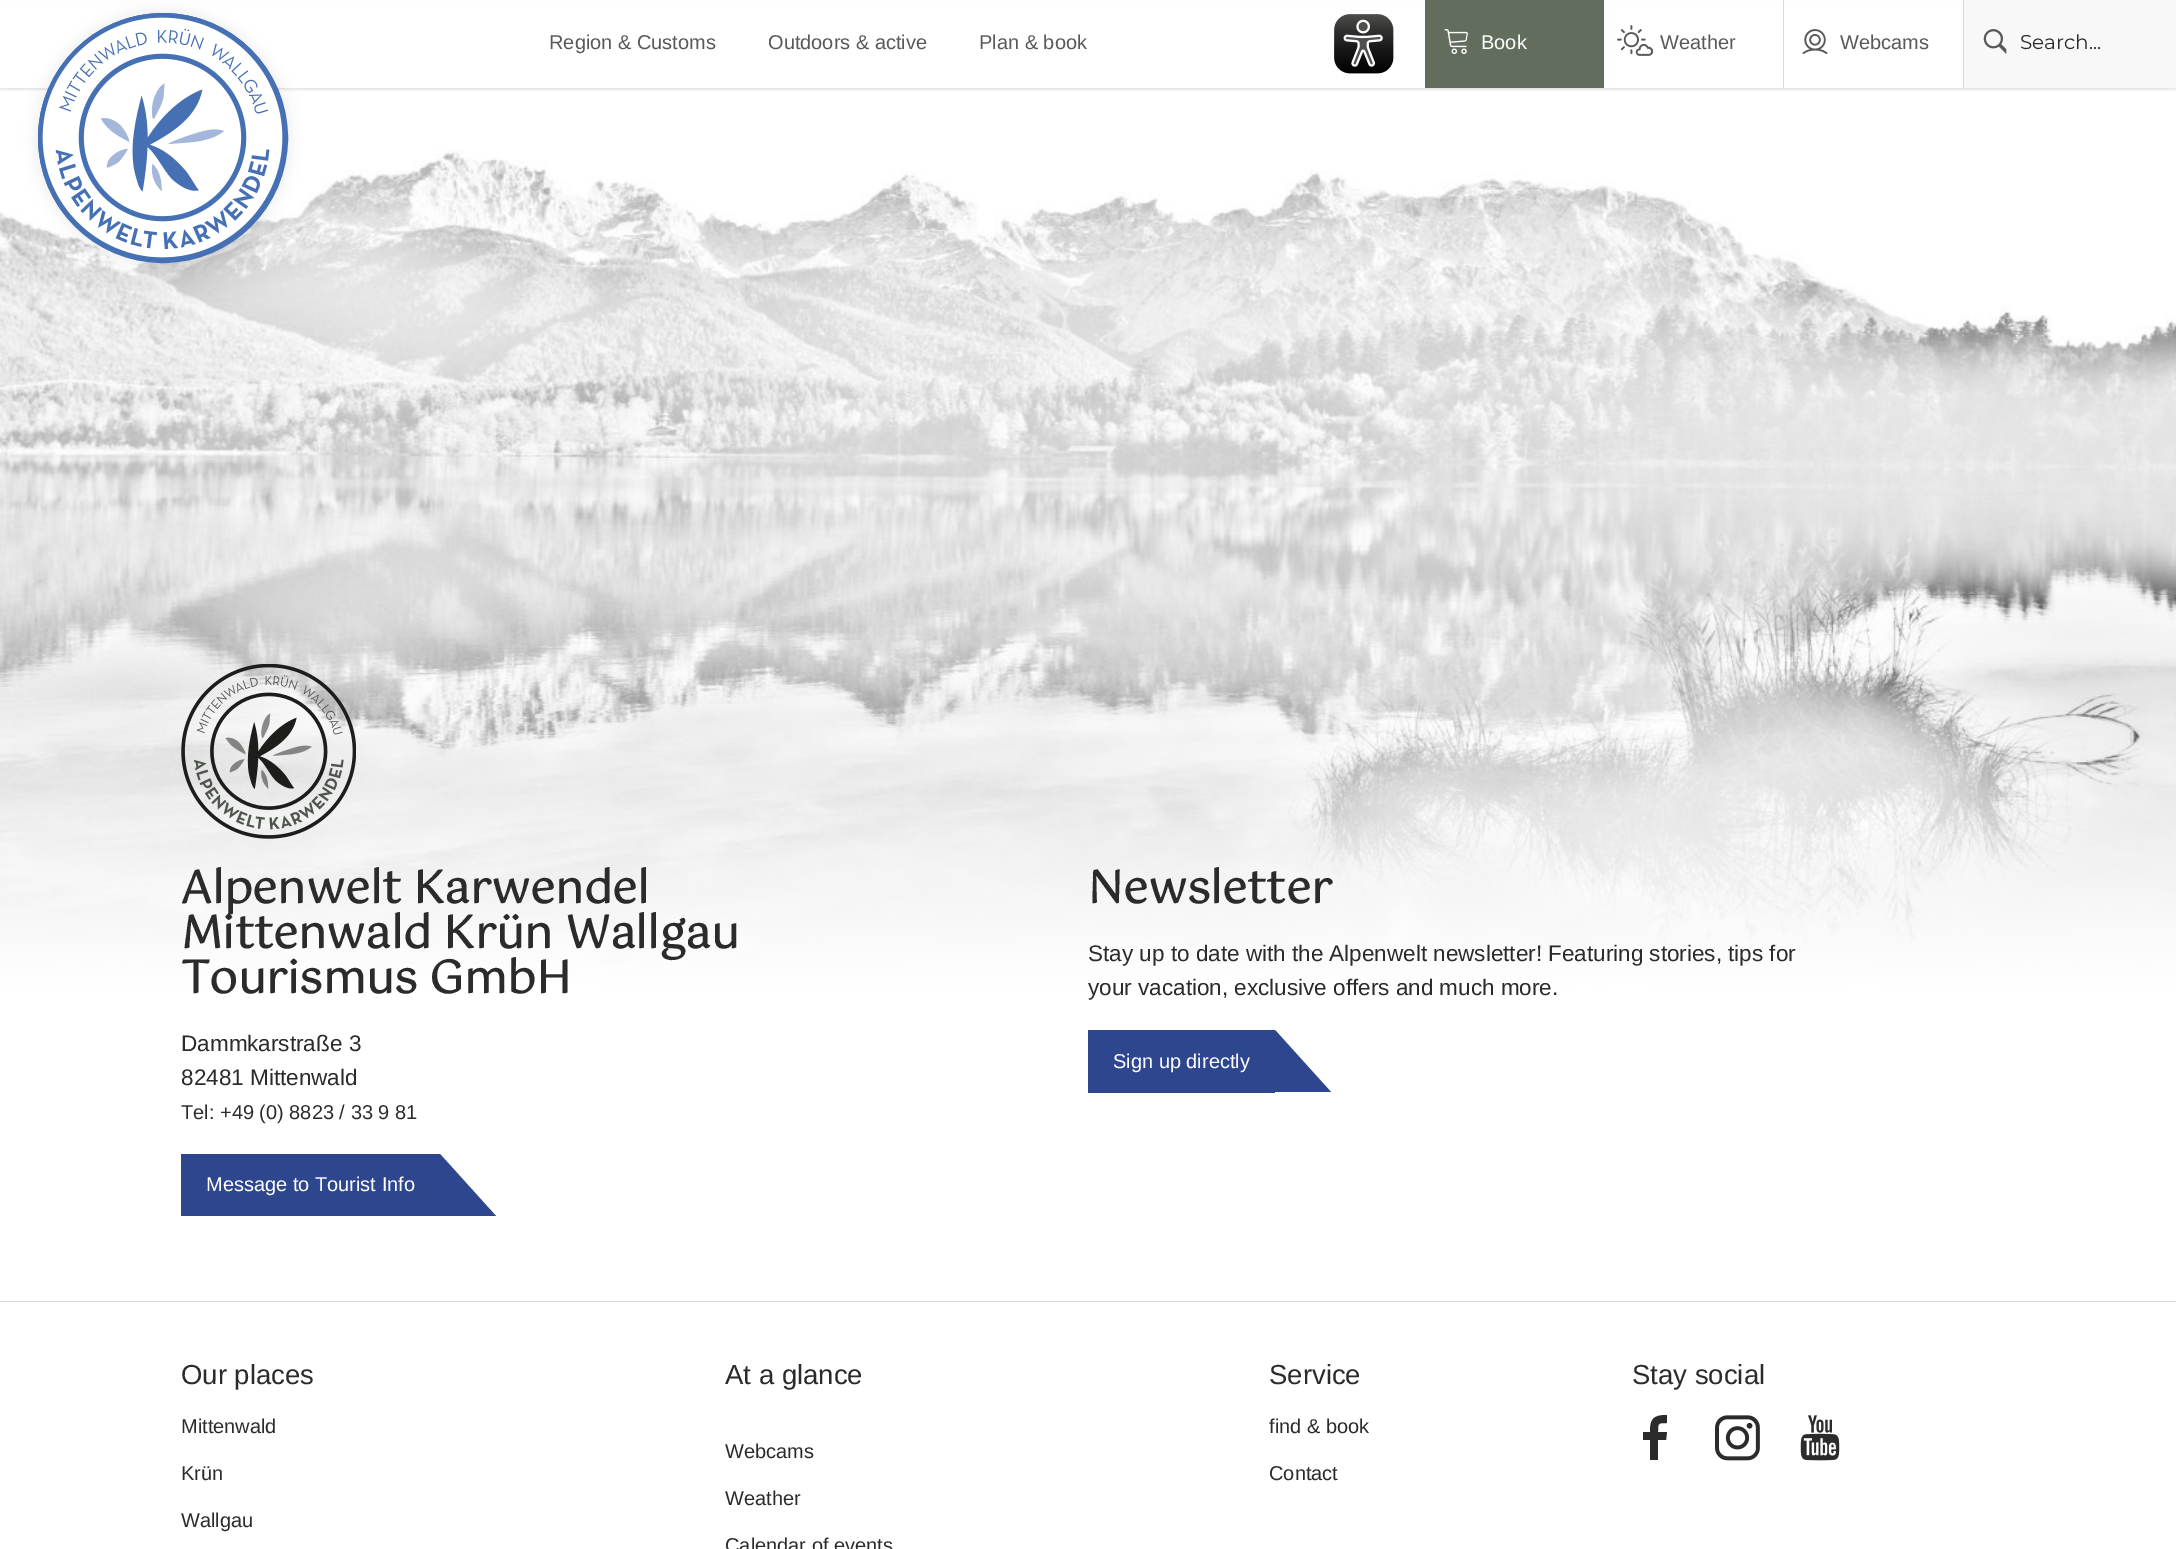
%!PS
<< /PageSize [2176 1549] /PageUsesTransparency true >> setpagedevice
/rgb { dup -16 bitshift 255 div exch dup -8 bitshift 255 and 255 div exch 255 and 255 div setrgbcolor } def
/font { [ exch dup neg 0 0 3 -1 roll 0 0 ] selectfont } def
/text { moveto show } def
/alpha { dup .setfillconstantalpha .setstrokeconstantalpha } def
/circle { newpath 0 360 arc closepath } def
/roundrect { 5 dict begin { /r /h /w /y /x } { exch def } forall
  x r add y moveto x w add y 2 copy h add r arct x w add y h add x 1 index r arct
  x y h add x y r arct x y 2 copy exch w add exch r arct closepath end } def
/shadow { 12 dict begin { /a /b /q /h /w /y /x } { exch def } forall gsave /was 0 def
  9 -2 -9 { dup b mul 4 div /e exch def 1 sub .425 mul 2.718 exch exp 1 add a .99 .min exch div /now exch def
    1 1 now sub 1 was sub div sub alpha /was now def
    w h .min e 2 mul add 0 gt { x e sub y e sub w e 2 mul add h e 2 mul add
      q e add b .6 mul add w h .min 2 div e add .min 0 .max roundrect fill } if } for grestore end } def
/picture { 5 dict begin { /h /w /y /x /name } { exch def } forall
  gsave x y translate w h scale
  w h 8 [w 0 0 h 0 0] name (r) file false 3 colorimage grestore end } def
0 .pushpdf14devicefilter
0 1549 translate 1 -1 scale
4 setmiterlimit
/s1 { /LiberationSans-Regular 20 font 16#595959 rgb } def
/s2 { /LiberationSans-Regular 20 font 16#FFFFFF rgb } def
/s3 { /Montserrat-Regular 20 font 16#2B2B2B rgb } def
/s4 { /Gotu-Bold 45 font 16#2B2B2B rgb } def
/s5 { /LiberationSans-Regular 22.5 font 16#2B2B2B rgb } def
/s6 { /LiberationSans-Regular 20 font 16#2B2B2B rgb } def
/s7 { /LiberationSans-Regular 27.5 font 16#2B2B2B rgb } def
16#FFFFFF rgb
0 0 2176 1549 rectfill
16#000000 rgb
0 3 2176 87 0 1 0.1 shadow
16#FFFFFF rgb
0 2 1963 86 rectfill
(pic7.raw) 0 150 2176 840 picture
16#000000 rgb
38 13 250 250 125 7.5 0.1 shadow
16#FFFFFF rgb
163 138 125 circle fill
(pic1.raw) 38 13 250 250 picture
16#4670B4 rgb
3 setlinewidth
163 138 123.5 circle stroke
s1
(Region & Customs) 549 49 text
(Outdoors & active) 768 49 text
(Plan & book) 979 49 text
(pic2.raw) 1334 14 60 60 picture
16#636D5D rgb
1425 0 179 88 rectfill
(pic3.raw) 1444 29 24 25 picture
s2
(Book) 1481 49 text
16#D9D9D9 rgb
1783 0 1 88 rectfill
(pic4.raw) 1617 25 37 31 picture
s1
(Weather) 1660 49 text
16#D9D9D9 rgb
1963 0 1 88 rectfill
(pic5.raw) 1802 29 26 25 picture
s1
(Webcams) 1840 49 text
16#F8F8F8 rgb
1964 0 212 88 rectfill
(pic6.raw) 1983 29 24 25 picture
s3
(Search...) 2020 49 text
16#D9D9D9 rgb
0 1301 2176 1 rectfill
(pic8.raw) 181 664 175 175 picture
s4
(Alpenwelt Karwendel) 181 903 text
(Mittenwald Krün Wallgau) 181 948 text
(Tourismus GmbH) 181 993 text
s5
(Dammkarstraße 3) 181 1051 text
(82481 Mittenwald) 181 1085 text
s6
(Tel: +49 \(0\) 8823 / 33 9 81) 181 1119 text
16#2D468E rgb
181 1154 259 62 rectfill
s2
(Message to Tourist Info) 206 1191 text
16#2D468E rgb
496 1216 moveto 440 1216 lineto 440 1154 lineto closepath fill
s4
(Newsletter) 1088 903 text
s5
(Stay up to date with the Alpenwelt newsletter! Featuring stories, tips for) 1088 961 text
(your vacation, exclusive offers and much more.) 1088 995 text
16#2D468E rgb
1088 1030 187 63 rectfill
s2
(Sign up directly) 1113 1068 text
16#2D468E rgb
1331 1092 moveto 1275 1092 lineto 1275 1030 lineto closepath fill
s7
(Our places) 181 1384 text
s6
(Mittenwald) 181 1433 text
(Krün) 181 1480 text
(Wallgau) 181 1527 text
s7
(At a glance) 725 1384 text
s6
(Webcams) 725 1458 text
(Weather) 725 1505 text
(Calendar of events) 725 1552 text
s7
(Service) 1269 1384 text
s6
(find & book) 1269 1433 text
(Contact) 1269 1480 text
s7
(Stay social) 1632 1384 text
1658 1460 moveto 1658 1440 lineto 1666 1440 lineto 1667 1432 lineto 1658 1432 lineto 1658 1423 1658 1423 1667 1423 curveto 1667 1415 lineto 1653 1415 1650 1419 1650 1432 curveto 1643 1432 lineto 1643 1440 lineto 1650 1440 lineto 1650 1460 lineto closepath fill
(pic9.raw) 1715 1415 45 46 picture
(pic10.raw) 1800 1415 40 46 picture
.poppdf14devicefilter showpage
